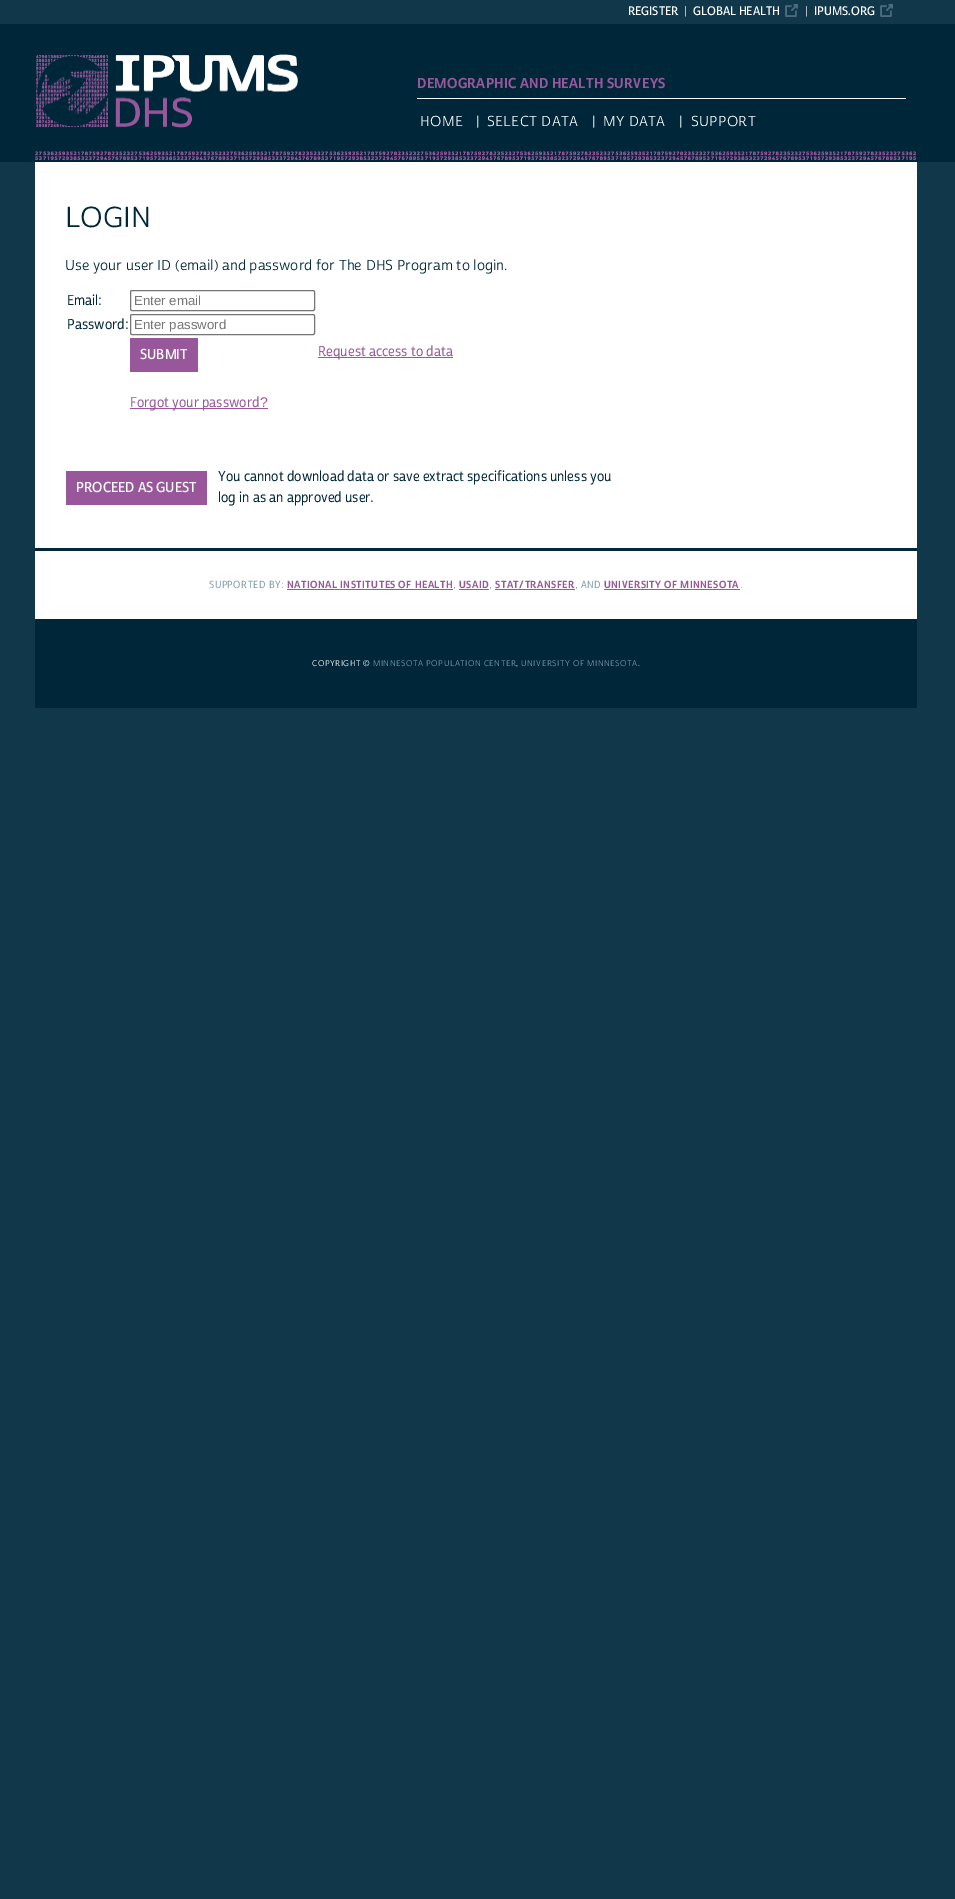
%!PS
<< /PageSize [955 1899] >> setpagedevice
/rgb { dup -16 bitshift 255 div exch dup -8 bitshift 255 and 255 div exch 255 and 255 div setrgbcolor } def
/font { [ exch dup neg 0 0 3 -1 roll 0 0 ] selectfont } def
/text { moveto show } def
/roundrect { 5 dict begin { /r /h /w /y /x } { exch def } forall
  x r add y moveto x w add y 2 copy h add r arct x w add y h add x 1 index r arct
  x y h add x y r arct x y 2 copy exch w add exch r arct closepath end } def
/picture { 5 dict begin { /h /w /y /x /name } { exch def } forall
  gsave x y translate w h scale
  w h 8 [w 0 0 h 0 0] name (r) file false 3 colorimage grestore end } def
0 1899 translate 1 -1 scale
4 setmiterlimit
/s1 { /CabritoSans-Bold 12 font 16#FBFCFC rgb } def
/s2 { /CabritoSans-Medium 12 font 16#F0E6F0 rgb } def
/s3 { /CabritoSans-Medium 28 font 16#00263A rgb } def
/s4 { /CabritoSans-Medium 14 font 16#00263A rgb } def
/s5 { /CabritoSans-SemiBold 14 font 16#00263A rgb } def
/s6 { /LiberationSans-Regular 14 font 16#00263A rgb } def
/s7 { /LiberationSans-Regular 13.25 font 16#757575 rgb } def
/s8 { /CabritoSans-Bold 14 font 16#FBFCFC rgb } def
/s9 { /CabritoSans-SemiBold 14 font 16#98579B rgb } def
/s10 { /LiberationSans-Regular 14 font 16#98579B rgb } def
16#11374B rgb
0 0 955 1899 rectfill
16#00263A rgb
0 24 955 138 rectfill
s1
(REGISTER) 628 15 text
s2
(|) 684 15 text
s1
(GLOBAL HEALTH) 693 15 text
(pic1.raw) 785 4 13 13 picture
s2
(|) 805 15 text
s1
(IPUMS.ORG) 814 15 text
(pic1.raw) 880 4 13 13 picture
(pic2.raw) 35 151 882 10 picture
(pic3.raw) 36 54 262 74 picture
16#F5F8F9 rgb
417 98 489 1 rectfill
/CabritoSans-ExtraBold 14 font
16#98579B rgb
417 88 moveto 0.35 0 (DEMOGRAPHIC AND HEALTH SURVEYS) ashow
/CabritoSans-Medium 14 font
16#F5F8F9 rgb
420 126 moveto 0.35 0 (HOME) ashow
476 126 moveto 0.35 0 (|) ashow
487 126 moveto 0.35 0 (SELECT DATA) ashow
592 126 moveto 0.35 0 (|) ashow
603 126 moveto 0.35 0 (MY DATA) ashow
679 126 moveto 0.35 0 (|) ashow
691 126 moveto 0.35 0 (SUPPORT) ashow
16#FFFFFF rgb
35 162 882 386 rectfill
s3
(LOGIN) 65 227 text
s4
(Use your user ID \(email\) and password for The DHS Program to login.) 65 270 text
s5
(Email) 67 305 text
s6
(:) 98 305 text
16#767676 rgb
130.5 290.5 184 20 1.5 roundrect stroke
s7
(Enter email) 134 305 text
s5
(Password) 67 329 text
s6
(:) 125 329 text
16#767676 rgb
130.5 314.5 184 20 1.5 roundrect stroke
s7
(Enter password) 134 329 text
16#98579B rgb
130 338 68 34 rectfill
s8
(SUBMIT) 140 359 text
16#98579B rgb
130 408 138 1 rectfill
s9
(Forgot your password) 130 407 text
s10
(?) 260 407 text
318 357 135 1 rectfill
s9
(Request access to data) 318 356 text
66 471 141 34 rectfill
s8
(PROCEED AS GUEST) 76 492 text
s5
(You cannot download data or save extract specifications unless you) 218 481 text
(log in as an approved user) 218 502 text
s6
(.) 370 502 text
16#FFFFFF rgb
35 551 882 68 rectfill
16#00263A rgb
35 548 882 3 rectfill
/CabritoSans-SemiBold 10 font
16#7A99AC rgb
209 588 moveto 0.5 0 (SUPPORTED BY) ashow
/LiberationSans-Regular 10 font
281 588 moveto 0.5 0 (:) ashow
/CabritoSans-ExtraBold 10 font
16#98579B rgb
287 588 moveto 0.5 0 (NATIONAL INSTITUTES OF HEALTH) ashow
287 589 166 1 rectfill
/LiberationSans-Regular 10 font
16#7A99AC rgb
453 588 moveto 0.5 0 (,) ashow
/CabritoSans-ExtraBold 10 font
16#98579B rgb
459 588 moveto 0.5 0 (USAID) ashow
459 589 30 1 rectfill
/LiberationSans-Regular 10 font
16#7A99AC rgb
489 588 moveto 0.5 0 (,) ashow
/CabritoSans-ExtraBold 10 font
16#98579B rgb
495 588 moveto 0.5 0 (STAT/TRANSFER) ashow
495 589 80 1 rectfill
/LiberationSans-Regular 10 font
16#7A99AC rgb
575 588 moveto 0.5 0 (,) ashow
/CabritoSans-SemiBold 10 font
581 588 moveto 0.5 0 (AND) ashow
/CabritoSans-ExtraBold 10 font
16#98579B rgb
604 588 moveto 0.5 0 (UNIVERSITY OF MINNESOTA) ashow
604 589 136 1 rectfill
/LiberationSans-Regular 10 font
16#7A99AC rgb
740 588 moveto 0.5 0 (.) ashow
16#00263A rgb
35 619 882 89 rectfill
/CabritoSans-Medium 8 font
16#FBFCFC rgb
312 666 moveto 0.5 0 (COPYRIGHT ©) ashow
16#7A99AC rgb
373 666 moveto 0.5 0 (MINNESOTA POPULATION CENTER) ashow
16#FBFCFC rgb
516 666 moveto 0.5 0 (,) ashow
16#7A99AC rgb
521 666 moveto 0.5 0 (UNIVERSITY OF MINNESOTA) ashow
16#FBFCFC rgb
638 666 moveto 0.5 0 (.) ashow
showpage
